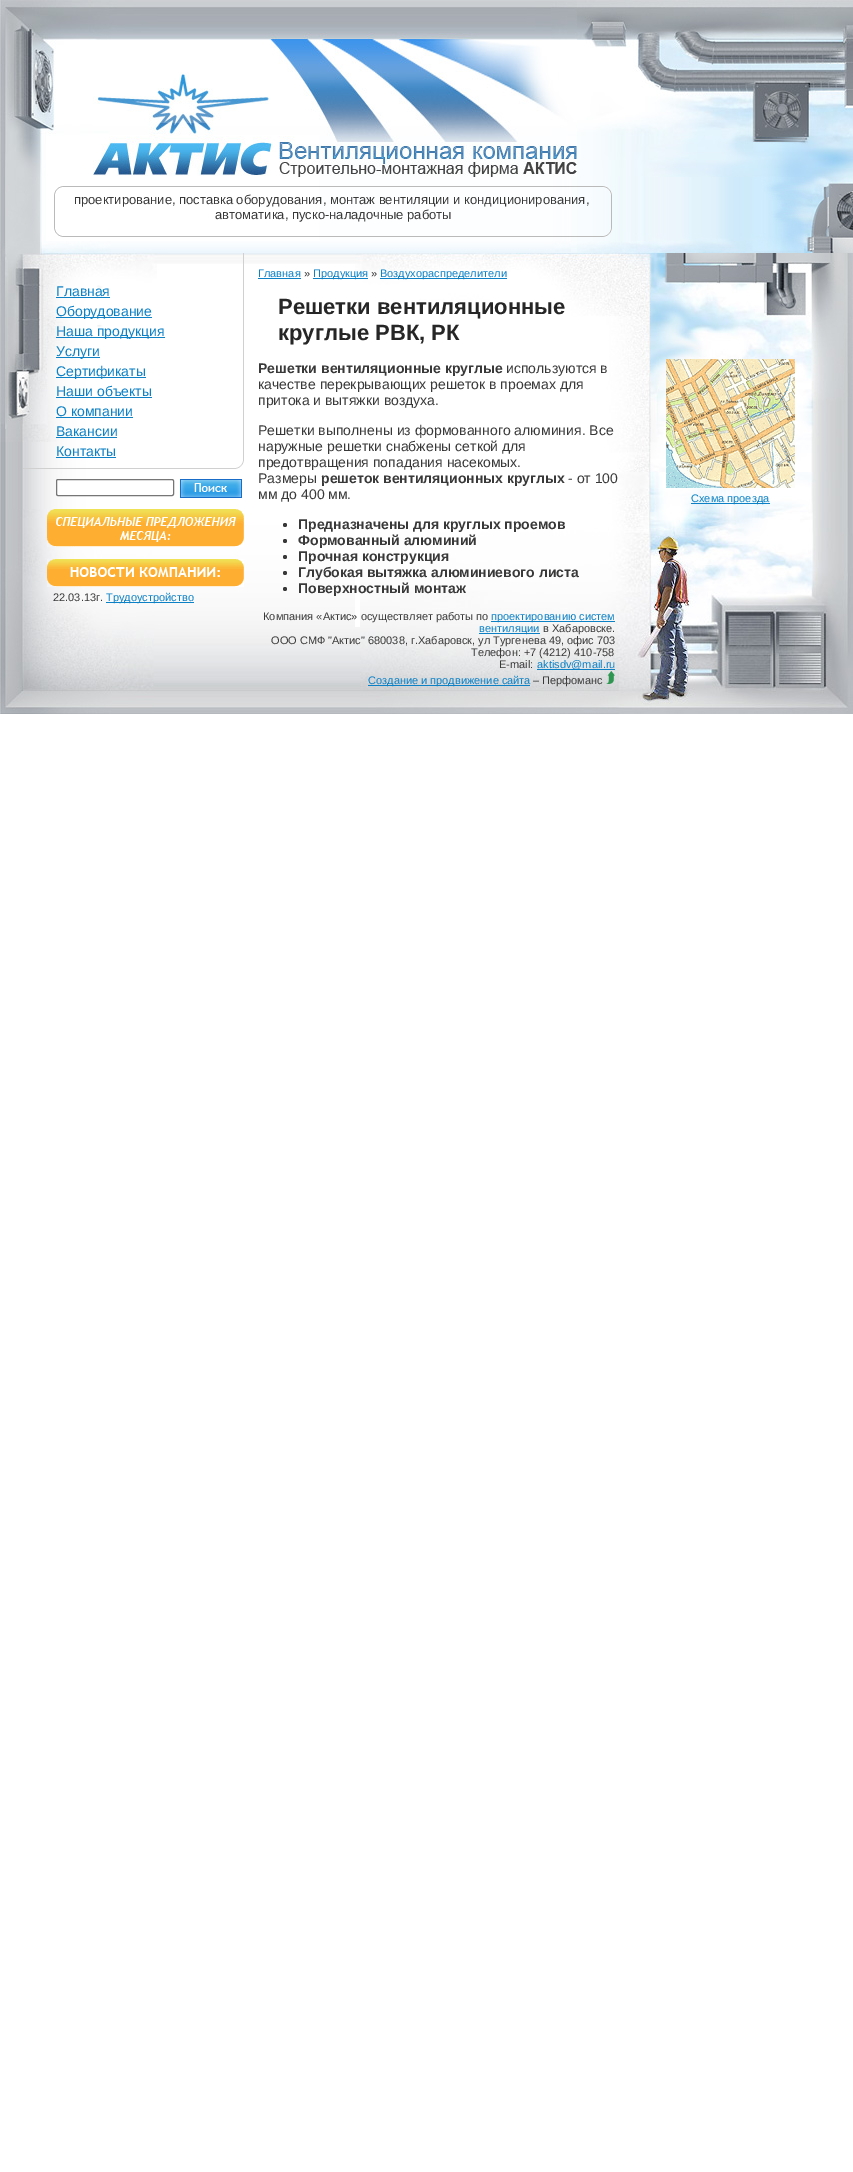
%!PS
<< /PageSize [853 2172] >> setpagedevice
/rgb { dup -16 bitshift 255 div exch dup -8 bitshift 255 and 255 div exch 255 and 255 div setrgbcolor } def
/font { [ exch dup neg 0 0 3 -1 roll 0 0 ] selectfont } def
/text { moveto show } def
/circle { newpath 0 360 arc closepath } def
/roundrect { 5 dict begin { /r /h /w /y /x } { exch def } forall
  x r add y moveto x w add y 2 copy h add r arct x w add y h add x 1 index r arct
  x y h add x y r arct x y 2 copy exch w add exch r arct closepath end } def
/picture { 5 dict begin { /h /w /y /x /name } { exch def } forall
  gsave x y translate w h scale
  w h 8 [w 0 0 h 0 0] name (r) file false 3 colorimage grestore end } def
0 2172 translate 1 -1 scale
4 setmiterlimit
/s1 { /LiberationSans-Regular 13 font 16#393939 rgb } def
/s2 { /LiberationSans-Regular 14 font 16#0C81C5 rgb } def
/s3 { /LiberationSans-Regular 11 font 16#393939 rgb } def
/s4 { /LiberationSans-Regular 11 font 16#0C81C5 rgb } def
/s5 { /LiberationSans-Bold 22 font 16#262626 rgb } def
/s6 { /LiberationSans-Bold 14 font 16#393939 rgb } def
/s7 { /LiberationSans-Regular 14 font 16#393939 rgb } def
16#FFFFFF rgb
0 0 853 2172 rectfill
(pic1.raw) 0 0 93 177 picture
(pic2.raw) 93 0 178 176 picture
(pic3.raw) 271 0 306 1 picture
(pic4.raw) 271 1 306 176 picture
(pic5.raw) 577 0 232 177 picture
(pic6.raw) 809 0 44 177 picture
(pic7.raw) 571 177 6 76 picture
(pic8.raw) 0 177 571 76 picture
(pic9.raw) 577 177 276 76 picture
(pic10.raw) 54 186 558 51 picture
s1
(проектирование, поставка оборудования, монтаж вентиляции и кондиционирования,) 74 204 text
(автоматика, пуско-наладочные работы) 215 219 text
(pic11.raw) 157 253 198 11 picture
(pic12.raw) 0 442 88 67 picture
(pic13.raw) 154 525 206 189 picture
(pic14.raw) 0 253 157 189 picture
(pic15.raw) 355 253 498 374 picture
(pic16.raw) 0 509 154 205 picture
(pic17.raw) 360 472 493 242 picture
s2
(Главная) 56 296 text
56 297 54 1 rectfill
56 317 96 1 rectfill
(Оборудование) 56 316 text
56 337 109 1 rectfill
(Наша продукция) 56 336 text
56 357 44 1 rectfill
(Услуги) 56 356 text
56 377 90 1 rectfill
(Сертификаты) 56 376 text
(Наши объекты) 56 396 text
56 397 96 1 rectfill
(О компании) 56 416 text
56 417 77 1 rectfill
(Вакансии) 56 436 text
56 437 61 1 rectfill
(Контакты) 56 456 text
56 457 60 1 rectfill
16#D0D0D0 rgb
243 253 1 208 rectfill
23 468 213 1 rectfill
(pic18.raw) 236 461 8 8 picture
16#FFFFFF rgb
56.5 479.5 117 16 1.5 roundrect gsave fill grestore
16#767676 rgb
stroke
(pic19.raw) 180 479 62 19 picture
(pic20.raw) 47 509 197 38 picture
(pic21.raw) 47 559 197 28 picture
s3
(22.03.13г.) 53 601 text
16#0C81C5 rgb
106 602 88 1 rectfill
(Трудоустройство) 106 601 text
(Главная) 258 277 text
258 278 43 1 rectfill
s3
(») 304 277 text
16#0C81C5 rgb
313 278 55 1 rectfill
(Продукция) 313 277 text
s3
(») 371 277 text
16#0C81C5 rgb
380 278 127 1 rectfill
(Воздухораспределители) 380 277 text
s5
(Решетки вентиляционные) 278 314 text
(круглые РВК, РК) 278 340 text
s6
(Решетки вентиляционные круглые) 258 373 text
s7
(используются в) 506 373 text
(качестве перекрывающих решеток в проемах для) 258 389 text
(притока и вытяжки воздуха.) 258 405 text
(Решетки выполнены из формованного алюминия. Все) 258 435 text
(наружные решетки снабжены сеткой для) 258 451 text
(предотвращения попадания насекомых.) 258 467 text
(Размеры) 258 483 text
s6
(решеток вентиляционных круглых) 321 483 text
s7
(- от 100) 568 483 text
(мм до 400 мм.) 258 499 text
285 525 2 circle fill
s6
(Предназначены для круглых проемов) 298 529 text
285 541 2 circle fill
(Формованный алюминий) 298 545 text
285 557 2 circle fill
(Прочная конструкция) 298 561 text
285 573 2 circle fill
(Глубокая вытяжка алюминиевого листа) 298 577 text
285 589 2 circle fill
(Поверхностный монтаж) 298 593 text
s3
(Компания «Актис» осуществляет работы по) 263 620 text
16#0C81C5 rgb
491 621 124 1 rectfill
(проектированию систем) 491 620 text
479 633 61 1 rectfill
(вентиляции) 479 632 text
s3
(в Хабаровске.) 543 632 text
(ООО СМФ "Актис" 680038, г.Хабаровск, ул Тургенева 49, офис 703) 271 644 text
(Телефон: +7 \(4212\) 410-758) 471 656 text
(E-mail:) 499 668 text
16#0C81C5 rgb
537 669 78 1 rectfill
(aktisdv@mail.ru) 537 668 text
368 685 162 1 rectfill
(Создание и продвижение сайта) 368 684 text
s3
(– Перфоманс) 533 684 text
(pic22.raw) 606 671 9 13 picture
(pic23.raw) 666 359 129 129 picture
16#0C81C5 rgb
691 503 79 1 rectfill
(Схема проезда) 691 502 text
showpage
